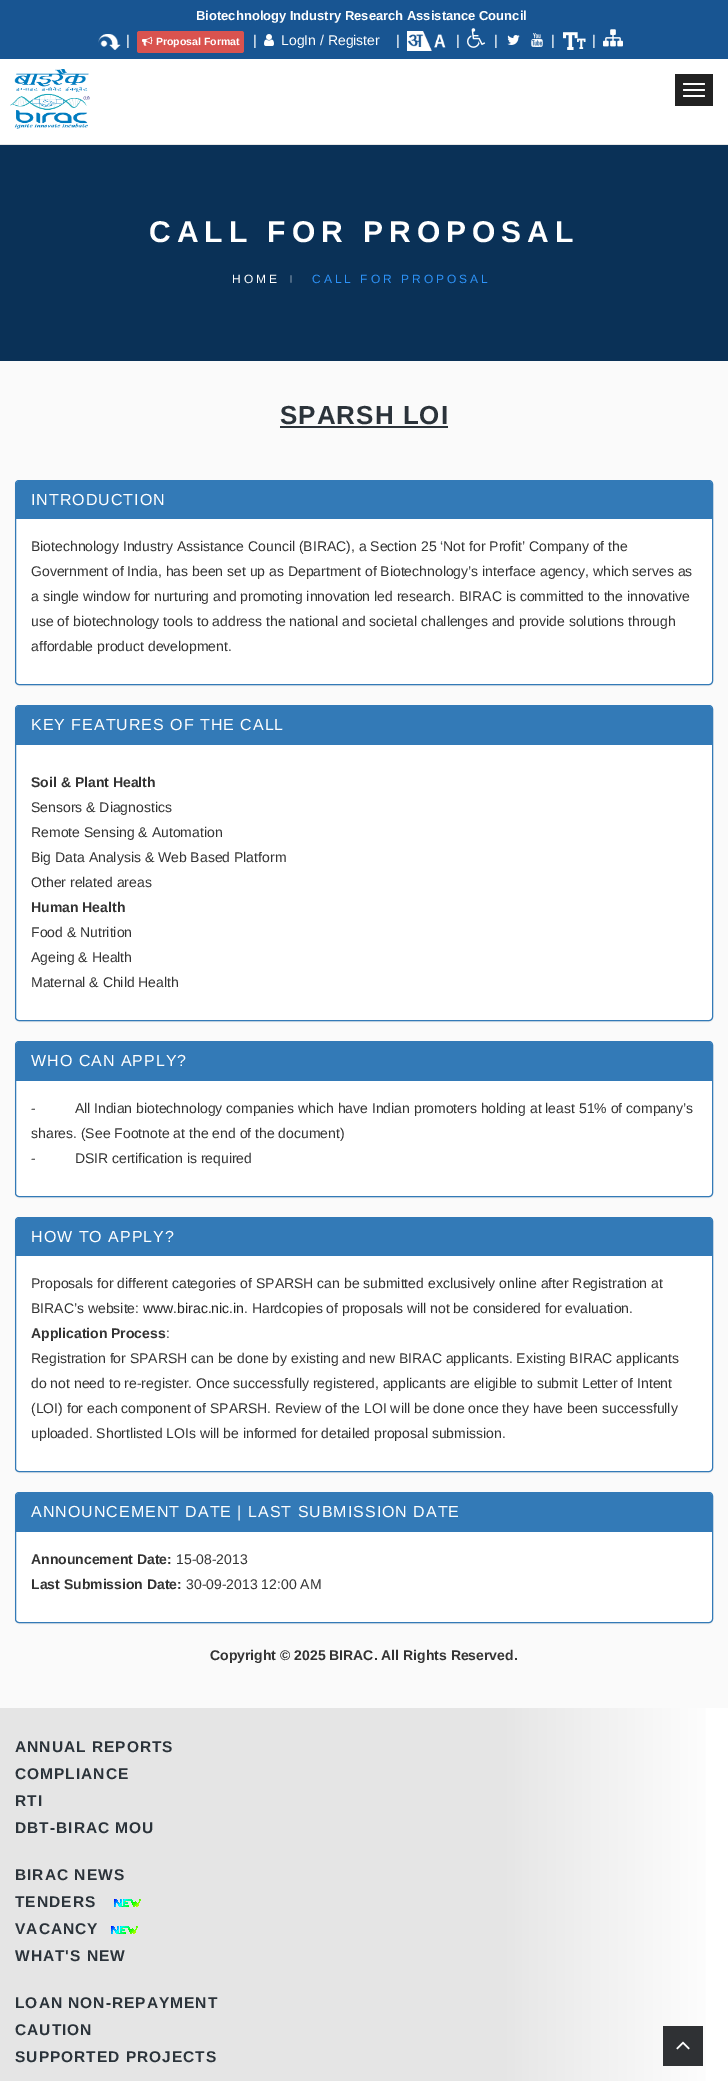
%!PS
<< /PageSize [728 2081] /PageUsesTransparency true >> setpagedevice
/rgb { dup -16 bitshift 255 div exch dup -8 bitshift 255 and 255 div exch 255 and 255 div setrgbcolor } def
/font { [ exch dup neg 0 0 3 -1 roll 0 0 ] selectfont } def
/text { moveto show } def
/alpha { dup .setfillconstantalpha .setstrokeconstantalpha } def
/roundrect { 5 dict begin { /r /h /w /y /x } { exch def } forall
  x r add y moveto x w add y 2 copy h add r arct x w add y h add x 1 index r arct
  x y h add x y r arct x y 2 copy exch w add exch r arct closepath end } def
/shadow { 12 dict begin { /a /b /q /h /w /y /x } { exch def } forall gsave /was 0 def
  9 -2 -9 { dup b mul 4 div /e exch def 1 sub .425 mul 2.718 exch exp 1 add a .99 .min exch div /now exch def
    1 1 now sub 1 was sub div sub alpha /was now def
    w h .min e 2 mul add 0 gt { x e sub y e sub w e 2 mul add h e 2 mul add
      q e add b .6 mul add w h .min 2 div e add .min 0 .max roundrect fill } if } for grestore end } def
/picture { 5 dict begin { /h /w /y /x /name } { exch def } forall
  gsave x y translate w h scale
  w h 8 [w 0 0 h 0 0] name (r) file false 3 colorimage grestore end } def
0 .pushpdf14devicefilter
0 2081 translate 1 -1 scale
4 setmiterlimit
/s1 { /LiberationSans-Bold 13 font 16#FFFFFF rgb } def
/s2 { /LiberationSans-Regular 14 font 16#FFFFFF rgb } def
/s3 { /LiberationSans-Bold 10.5 font 16#FFFFFF rgb } def
/s4 { /LiberationSans-Regular 14 font 16#333333 rgb } def
/s5 { /LiberationSans-Bold 14 font 16#333333 rgb } def
/s6 { /LiberationSans-Regular 14 font 16#222222 rgb } def
16#FFFFFF rgb
0 0 728 2081 rectfill
16#185592 rgb
0 0 728 59 rectfill
s1
(Biotechnology Industry Research Assistance Council) 196 20 text
(pic1.raw) 98 34 23 16 picture
s2
(|) 126 45 text
16#D9534F rgb
137 31 107 22 2.5 roundrect fill
(pic2.raw) 142 36 11 10 picture
s3
(Proposal Format) 156 45 text
s2
(|) 253 45 text
(pic3.raw) 264 34 10 12 picture
(LogIn / Register) 281 45 text
(|) 396 45 text
(pic4.raw) 407 31 39 20 picture
(|) 456 45 text
(pic5.raw) 467 28 19 20 picture
(|) 494 45 text
(pic6.raw) 507 35 13 10 picture
(pic7.raw) 531 33 12 14 picture
(|) 551 45 text
(pic8.raw) 563 32 23 18 picture
(|) 592 45 text
(pic9.raw) 603 29 20 18 picture
16#E7E7E7 rgb
0 144 728 1 rectfill
(pic10.raw) 10 69 80 60 picture
16#222222 rgb
675 74 38 32 rectfill
16#FFFFFF rgb
683 83 22 2 1 roundrect fill
683 89 22 2 1 roundrect fill
683 95 22 2 1 roundrect fill
16#0A3157 rgb
0 145 728 216 rectfill
/LiberationSans-Bold 30 font
16#FFFFFF rgb
149 242 moveto 6 0 (CALL FOR PROPOSAL) ashow
/LiberationSans-Regular 12 font
232 283 moveto 3 0 (HOME) ashow
/LiberationSans-Regular 8 font
290 281 moveto 3 0 (|) ashow
/LiberationSans-Regular 12 font
16#2D93F9 rgb
312 283 moveto 3 0 (CALL FOR PROPOSAL) ashow
16#FAFAFA rgb
0 361 728 1347 rectfill
/LiberationSans-Bold 26 font
16#2B333A rgb
280 424 moveto 1 0 (SPARSH LOI) ashow
280 426 168 2 rectfill
16#000000 rgb
15 481 698 205 4 0.5 0.05 shadow
16#FFFFFF rgb
15.5 480.5 697 204 3.5 roundrect gsave fill grestore
16#337AB7 rgb
stroke
19 481 moveto 709 481 lineto 710.5 481 712 482.5 712 484 curveto 712 519 lineto 16 519 lineto 16 484 lineto 16 482.5 17.5 481 19 481 curveto closepath fill
/LiberationSans-Regular 16 font
16#FFFFFF rgb
31 505 moveto 1 0 (INTRODUCTION) ashow
s4
(Biotechnology Industry Assistance Council \(BIRAC\), a Section 25 ‘Not for Profit’ Company of the) 31 551 text
(Government of India, has been set up as Department of Biotechnology’s interface agency, which serves as) 31 576 text
(a single window for nurturing and promoting innovation led research. BIRAC is committed to the innovative) 31 601 text
(use of biotechnology tools to address the national and societal challenges and provide solutions through) 31 626 text
(affordable product development.) 31 651 text
16#000000 rgb
15 706 698 316 4 0.5 0.05 shadow
16#FFFFFF rgb
15.5 705.5 697 315 3.5 roundrect gsave fill grestore
16#337AB7 rgb
stroke
19 706 moveto 709 706 lineto 710.5 706 712 707.5 712 709 curveto 712 745 lineto 16 745 lineto 16 709 lineto 16 707.5 17.5 706 19 706 curveto closepath fill
/LiberationSans-Regular 16 font
16#FFFFFF rgb
31 730 moveto 1 0 (KEY FEATURES OF THE CALL) ashow
s5
(Soil & Plant Health) 31 787 text
s4
(Sensors & Diagnostics) 31 812 text
(Remote Sensing & Automation) 31 837 text
(Big Data Analysis & Web Based Platform) 31 862 text
(Other related areas) 31 887 text
s5
(Human Health) 31 912 text
s4
(Food & Nutrition) 31 937 text
(Ageing & Health) 31 962 text
(Maternal & Child Health) 31 987 text
16#000000 rgb
15 1042 698 156 4 0.5 0.05 shadow
16#FFFFFF rgb
15.5 1041.5 697 155 3.5 roundrect gsave fill grestore
16#337AB7 rgb
stroke
19 1042 moveto 709 1042 lineto 710.5 1042 712 1043.5 712 1045 curveto 712 1081 lineto 16 1081 lineto 16 1045 lineto 16 1043.5 17.5 1042 19 1042 curveto closepath fill
/LiberationSans-Regular 16 font
16#FFFFFF rgb
31 1066 moveto 1 0 (WHO CAN APPLY?) ashow
s4
(-          All Indian biotechnology companies which have Indian promoters holding at least 51% of company’s) 31 1113 text
(shares. \(See Footnote at the end of the document\)) 31 1138 text
(-          DSIR certification is required) 31 1163 text
16#000000 rgb
15 1218 698 255 4 0.5 0.05 shadow
16#FFFFFF rgb
15.5 1217.5 697 254 3.5 roundrect gsave fill grestore
16#337AB7 rgb
stroke
19 1218 moveto 709 1218 lineto 710.5 1218 712 1219.5 712 1221 curveto 712 1256 lineto 16 1256 lineto 16 1221 lineto 16 1219.5 17.5 1218 19 1218 curveto closepath fill
/LiberationSans-Regular 16 font
16#FFFFFF rgb
31 1242 moveto 1 0 (HOW TO APPLY?) ashow
s4
(Proposals for different categories of SPARSH can be submitted exclusively online after Registration at) 31 1288 text
(BIRAC’s website:) 31 1313 text
s6
(www.birac.nic.in) 143 1313 text
s4
(. Hardcopies of proposals will not be considered for evaluation.) 244 1313 text
s5
(Application Process) 31 1338 text
s4
(:) 166 1338 text
(Registration for SPARSH can be done by existing and new BIRAC applicants. Existing BIRAC applicants) 31 1363 text
(do not need to re-register. Once successfully registered, applicants are eligible to submit Letter of Intent) 31 1388 text
(\(LOI\) for each component of SPARSH. Review of the LOI will be done once they have been successfully) 31 1413 text
(uploaded. Shortlisted LOIs will be informed for detailed proposal submission.) 31 1438 text
16#000000 rgb
15 1493 698 131 4 0.5 0.05 shadow
16#FFFFFF rgb
15.5 1492.5 697 130 3.5 roundrect gsave fill grestore
16#337AB7 rgb
stroke
19 1493 moveto 709 1493 lineto 710.5 1493 712 1494.5 712 1496 curveto 712 1532 lineto 16 1532 lineto 16 1496 lineto 16 1494.5 17.5 1493 19 1493 curveto closepath fill
/LiberationSans-Regular 16 font
16#FFFFFF rgb
31 1517 moveto 1 0 (ANNOUNCEMENT DATE | LAST SUBMISSION DATE) ashow
s5
(Announcement Date:) 31 1564 text
s4
(15-08-2013) 176 1564 text
s5
(Last Submission Date:) 31 1589 text
s4
(30-09-2013 12:00 AM) 186 1589 text
s5
(Copyright © 2025 BIRAC. All Rights Reserved.) 210 1660 text
gsave 0 1708 moveto 706 1708 lineto 706 2081 lineto 0 2081 lineto closepath clip newpath
<< /ShadingType 2 /ColorSpace /DeviceRGB /Coords [0 1959 728 1959] /Extend [true true] /Function << /FunctionType 3 /Domain [0 1] /Functions [<< /FunctionType 2 /Domain [0 1] /C0 [0.898 0.898 0.898] /C1 [0.898 0.898 0.898] /N 1 >> << /FunctionType 2 /Domain [0 1] /C0 [0.898 0.898 0.898] /C1 [1 1 1] /N 1 >>] /Bounds [0.68] /Encode [0 1 0 1] >> >> shfill grestore
/LiberationSans-Bold 15.5 font
16#2B333A rgb
15 1752 moveto 1 0 (ANNUAL REPORTS) ashow
15 1779 moveto 1 0 (COMPLIANCE) ashow
15 1806 moveto 1 0 (RTI) ashow
15 1833 moveto 1 0 (DBT-BIRAC MOU) ashow
15 1880 moveto 1 0 (BIRAC NEWS) ashow
15 1907 moveto 1 0 (TENDERS) ashow
(pic11.raw) 114 1899 27 8 picture
15 1934 moveto 1 0 (VACANCY) ashow
(pic11.raw) 111 1926 27 8 picture
15 1961 moveto 1 0 (WHAT'S NEW) ashow
15 2008 moveto 1 0 (LOAN NON-REPAYMENT) ashow
15 2035 moveto 1 0 (CAUTION) ashow
15 2062 moveto 1 0 (SUPPORTED PROJECTS) ashow
16#2F3134 rgb
663 2026 40 40 rectfill
(pic12.raw) 676 2041 14 9 picture
.poppdf14devicefilter showpage
